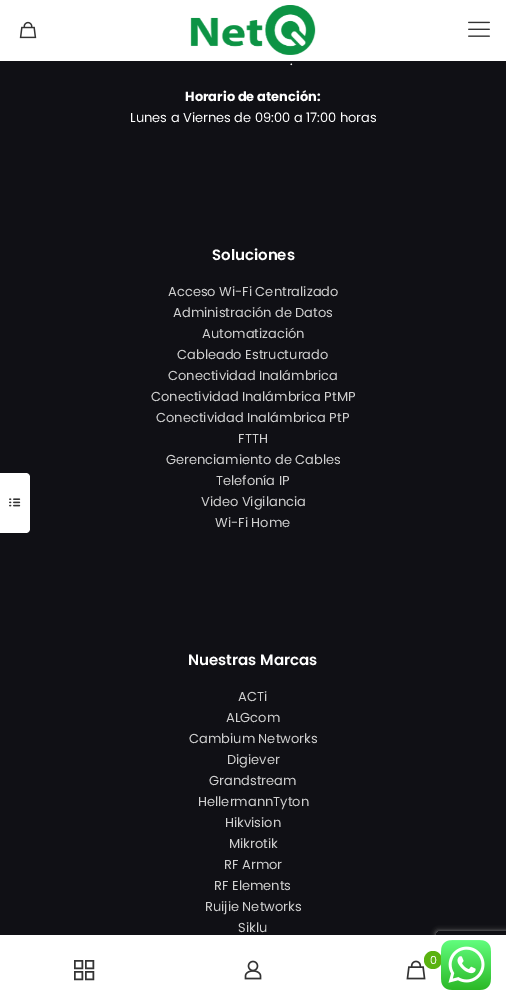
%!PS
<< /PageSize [506 1005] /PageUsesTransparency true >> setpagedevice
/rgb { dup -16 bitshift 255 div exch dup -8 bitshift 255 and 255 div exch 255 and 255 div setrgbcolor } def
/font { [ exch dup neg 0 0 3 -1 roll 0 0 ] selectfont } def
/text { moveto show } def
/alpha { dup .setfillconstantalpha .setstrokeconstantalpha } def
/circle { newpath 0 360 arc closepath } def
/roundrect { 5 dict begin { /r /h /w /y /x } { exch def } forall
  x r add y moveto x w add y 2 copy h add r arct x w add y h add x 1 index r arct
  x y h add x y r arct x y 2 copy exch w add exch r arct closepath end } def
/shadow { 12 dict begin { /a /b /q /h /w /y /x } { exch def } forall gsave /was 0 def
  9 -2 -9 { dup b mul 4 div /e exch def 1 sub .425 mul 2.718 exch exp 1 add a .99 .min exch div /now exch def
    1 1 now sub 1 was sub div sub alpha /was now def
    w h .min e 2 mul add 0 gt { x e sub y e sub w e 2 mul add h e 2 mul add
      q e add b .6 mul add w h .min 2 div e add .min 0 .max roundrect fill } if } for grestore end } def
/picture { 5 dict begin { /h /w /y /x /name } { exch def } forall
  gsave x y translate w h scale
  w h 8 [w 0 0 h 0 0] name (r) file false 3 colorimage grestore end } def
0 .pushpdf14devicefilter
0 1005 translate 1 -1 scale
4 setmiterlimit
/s1 { /Poppins-Regular 13 font 16#FFFFFF rgb } def
/s2 { /Poppins-Bold 13 font 16#FFFFFF rgb } def
/s3 { /Poppins-SemiBold 15 font 16#FFFFFF rgb } def
/s4 { /Poppins-Regular 13 font 16#D1D1D1 rgb } def
/s5 { /Poppins-Regular 11 font 16#FFFFFF rgb } def
16#101015 rgb
0 0 506 1005 rectfill
16#FFFFFF rgb
0 473 moveto 26 473 lineto 28 473 30 475 30 477 curveto 30 529 lineto 30 531 28 533 26 533 curveto 0 533 lineto closepath fill
(pic1.raw) 9 498 12 9 picture
0 0 506 61 rectfill
(pic2.raw) 19 21 18 18 picture
(pic3.raw) 190 5 126 50 picture
(pic4.raw) 468 21 22 16 picture
s1
(.) 290 65 text
s2
(Horario de atención:) 185 101 text
s1
(Lunes a Viernes de 09:00 a 17:00 horas) 130 122 text
s3
(Soluciones) 212 260 text
s4
(Acceso Wi-Fi Centralizado) 168 296 text
(Administración de Datos) 173 317 text
(Automatización) 202 338 text
(Cableado Estructurado) 177 359 text
(Conectividad Inalámbrica) 168 380 text
(Conectividad Inalámbrica PtMP) 151 401 text
(Conectividad Inalámbrica PtP) 156 422 text
(FTTH) 238 443 text
(Gerenciamiento de Cables) 166 464 text
(Telefonía IP) 216 485 text
(Video Vigilancia) 201 506 text
(Wi-Fi Home) 215 527 text
s3
(Nuestras Marcas) 188 665 text
s4
(ACTi) 238 701 text
(ALGcom) 226 722 text
(Cambium Networks) 189 743 text
(Digiever) 227 764 text
(Grandstream) 209 785 text
(HellermannTyton) 198 806 text
(Hikvision) 225 827 text
(Mikrotik) 229 848 text
(RF Armor) 224 869 text
(RF Elements) 214 890 text
(Ruijie Networks) 205 911 text
(Siklu) 238 932 text
gsave
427 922 moveto 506 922 lineto 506 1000 lineto 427 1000 lineto closepath 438 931 moveto 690 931 lineto 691 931 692 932 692 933 curveto 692 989 lineto 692 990 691 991 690 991 curveto 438 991 lineto 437 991 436 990 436 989 curveto 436 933 lineto 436 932 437 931 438 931 curveto closepath eoclip newpath
16#808080 rgb
436 931 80 60 2 2.5 1 shadow
grestore
16#FFFFFF rgb
0 935 506 70 rectfill
16#333333 rgb
1.5 setlinewidth
85.75 960.75 7.5 7.5 rectstroke
74.75 960.75 7.5 7.5 rectstroke
74.75 971.75 7.5 7.5 rectstroke
85.75 971.75 7.5 7.5 rectstroke
(pic5.raw) 244 960 18 20 picture
(pic6.raw) 406 960 20 20 picture
16#5AB210 rgb
433 960 9 circle fill
s5
(0) 430 964 text
(pic7.raw) 441 940 50 50 picture
.poppdf14devicefilter showpage
